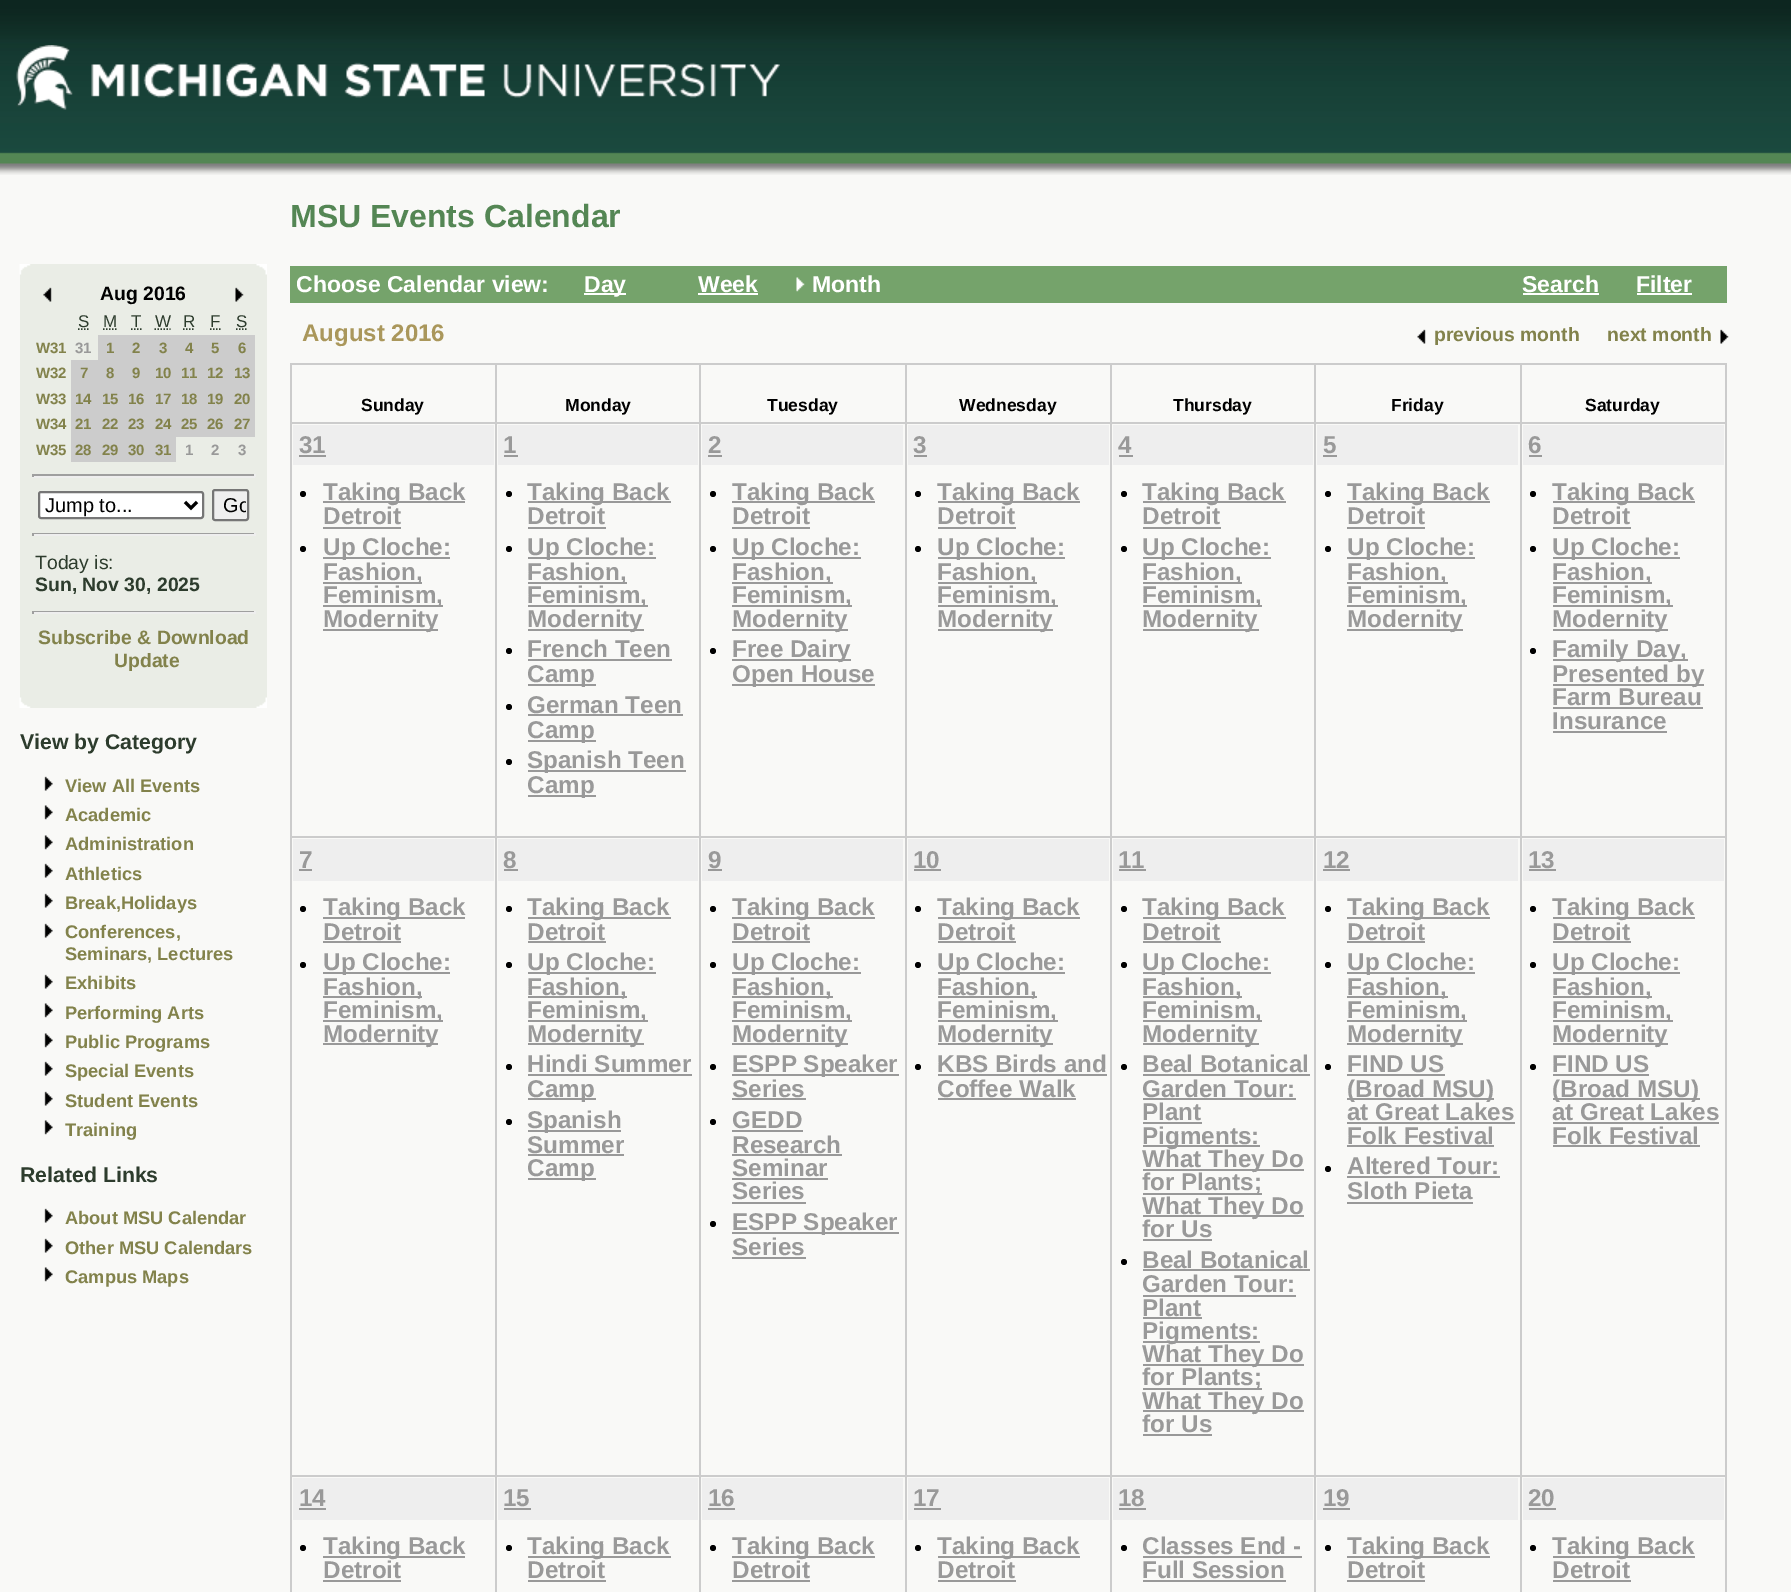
%!PS
<< /PageSize [1791 1592] >> setpagedevice
/rgb { dup -16 bitshift 255 div exch dup -8 bitshift 255 and 255 div exch 255 and 255 div setrgbcolor } def
/font { [ exch dup neg 0 0 3 -1 roll 0 0 ] selectfont } def
/text { moveto show } def
/circle { newpath 0 360 arc closepath } def
/roundrect { 5 dict begin { /r /h /w /y /x } { exch def } forall
  x r add y moveto x w add y 2 copy h add r arct x w add y h add x 1 index r arct
  x y h add x y r arct x y 2 copy exch w add exch r arct closepath end } def
/picture { 5 dict begin { /h /w /y /x /name } { exch def } forall
  gsave x y translate w h scale
  w h 8 [w 0 0 h 0 0] name (r) file false 3 colorimage grestore end } def
0 1592 translate 1 -1 scale
4 setmiterlimit
/s1 { /LiberationSans-Bold 19.4 font 16#000000 rgb } def
/s2 { /LiberationSans-Regular 17 font 16#2D3C2D rgb } def
/s3 { /LiberationSans-Bold 15 font 16#82824B rgb } def
/s4 { /LiberationSans-Bold 15 font 16#999999 rgb } def
/s5 { /LiberationSans-Regular 20 font 16#000000 rgb } def
/s6 { /LiberationSans-Regular 19.4 font 16#2D3C2D rgb } def
/s7 { /LiberationSans-Bold 19.4 font 16#2D3C2D rgb } def
/s8 { /LiberationSans-Bold 19.4 font 16#82824B rgb } def
/s9 { /LiberationSans-Bold 21.25 font 16#2D3C2D rgb } def
/s10 { /LiberationSans-Bold 18.25 font 16#82824B rgb } def
/s11 { /LiberationSans-Bold 32 font 16#548654 rgb } def
/s12 { /LiberationSans-Bold 23 font 16#FFFFFF rgb } def
/s13 { /LiberationSans-Bold 24 font 16#AA975B rgb } def
/s14 { /LiberationSans-Bold 17.5 font 16#000000 rgb } def
/s15 { /LiberationSans-Bold 24.25 font 16#999999 rgb } def
16#F9F9F7 rgb
0 0 1791 1592 rectfill
(pic1.raw) 0 0 1791 175 picture
(pic2.raw) 16 45 764 65 picture
16#EAEDE6 rgb
20 264 12 444 rectfill
(pic3.raw) 19 264 12 11 picture
32 264 223 444 rectfill
255 264 12 444 rectfill
(pic4.raw) 256 264 11 11 picture
(pic5.raw) 43 287 9 15 picture
s1
(Aug 2016) 100 300 text
(pic6.raw) 235 287 9 15 picture
s2
(S) 78 327 text
1.5 setlinewidth
[1.5 1.5] 0 setdash
78 329 moveto 89 329 lineto stroke
(M) 103 327 text
103 329 moveto 117 329 lineto stroke
(T) 131 327 text
[] 0 setdash
131 329 moveto 132.5 329 lineto 134 329 moveto 135.5 329 lineto 137 329 moveto 138.5 329 lineto 140 329 moveto 141.5 329 lineto stroke
(W) 155 327 text
[1.5 1.5] 0 setdash
154.5 329 moveto 170.5 329 lineto stroke
(R) 183 327 text
183 329 moveto 195 329 lineto stroke
(F) 210 327 text
[] 0 setdash
210 329 moveto 211.5 329 lineto 213 329 moveto 214.5 329 lineto 216 329 moveto 217.5 329 lineto 219 329 moveto 220.5 329 lineto stroke
(S) 236 327 text
[1.5 1.5] 0 setdash
236 329 moveto 247.5 329 lineto stroke
s3
(W31) 36 353 text
s4
(31) 75 353 text
16#CCCCCC rgb
98 335 157 25 rectfill
s3
(1) 106 353 text
(2) 132 353 text
(3) 159 353 text
(4) 185 353 text
(5) 211 353 text
(6) 238 353 text
(W32) 36 378 text
16#CCCCCC rgb
71 360 184 26 rectfill
s3
(7) 80 378 text
(8) 106 378 text
(9) 132 378 text
(10) 155 378 text
(11) 181 378 text
(12) 207 378 text
(13) 234 378 text
(W33) 36 404 text
16#CCCCCC rgb
71 386 184 25 rectfill
s3
(14) 75 404 text
(15) 102 404 text
(16) 128 404 text
(17) 155 404 text
(18) 181 404 text
(19) 207 404 text
(20) 234 404 text
(W34) 36 429 text
16#CCCCCC rgb
71 411 184 26 rectfill
s3
(21) 75 429 text
(22) 102 429 text
(23) 128 429 text
(24) 155 429 text
(25) 181 429 text
(26) 207 429 text
(27) 234 429 text
(W35) 36 455 text
16#CCCCCC rgb
71 437 105 25 rectfill
s3
(28) 75 455 text
(29) 102 455 text
(30) 128 455 text
(31) 155 455 text
s4
(1) 185 455 text
(2) 211 455 text
(3) 238 455 text
16#9F9F9F rgb
32 474 223 2 rectfill
16#EEEEEE rgb
254 474 2 3 rectfill
32 476 223 2 rectfill
16#9F9F9F rgb
32 474 2 3 rectfill
16#FFFFFF rgb
39 492 164 26 2 roundrect gsave fill grestore
16#767676 rgb
2 setlinewidth
[] 0 setdash
stroke
16#000000 rgb
3 setlinewidth
185 502 moveto 191 508 lineto 197 502 lineto stroke
s5
(Jump to...) 45 512 text
16#EFEFEF rgb
213 490 35 30 2 roundrect gsave fill grestore
16#767676 rgb
2 setlinewidth
stroke
gsave
215 492 31 26 rectclip
s5
(Go) 223 512 text
grestore
16#9F9F9F rgb
32 533 223 1 rectfill
16#EEEEEE rgb
254 533 2 3 rectfill
32 534 223 2 rectfill
16#9F9F9F rgb
32 533 2 3 rectfill
s6
(Today is:) 35 569 text
s7
(Sun, Nov 30, 2025) 35 591 text
16#9F9F9F rgb
32 611 223 1 rectfill
16#EEEEEE rgb
254 611 2 3 rectfill
32 612 223 2 rectfill
16#9F9F9F rgb
32 611 2 3 rectfill
s8
(Subscribe & Download) 38 644 text
(Update) 114 667 text
(pic7.raw) 19 697 12 11 picture
(pic8.raw) 256 697 11 11 picture
s9
(View by Category) 20 749 text
(pic9.raw) 44 776 9 15 picture
s10
(View All Events) 65 792 text
(pic10.raw) 44 805 9 15 picture
(Academic) 65 821 text
(pic10.raw) 44 835 9 15 picture
(Administration) 65 850 text
(pic9.raw) 44 863 9 15 picture
(Athletics) 65 880 text
(pic9.raw) 44 893 9 15 picture
(Break,Holidays) 65 909 text
(pic9.raw) 44 923 9 15 picture
(Conferences,) 65 938 text
(Seminars, Lectures) 65 960 text
(pic9.raw) 44 974 9 15 picture
(Exhibits) 65 989 text
(pic10.raw) 44 1003 9 15 picture
(Performing Arts) 65 1019 text
(pic10.raw) 44 1033 9 15 picture
(Public Programs) 65 1048 text
(pic9.raw) 44 1061 9 15 picture
(Special Events) 65 1077 text
(pic9.raw) 44 1091 9 15 picture
(Student Events) 65 1107 text
(pic10.raw) 44 1120 9 15 picture
(Training) 65 1136 text
s9
(Related Links) 20 1182 text
(pic9.raw) 44 1208 9 15 picture
s10
(About MSU Calendar) 65 1224 text
(pic9.raw) 44 1238 9 15 picture
(Other MSU Calendars) 65 1254 text
(pic10.raw) 44 1267 9 15 picture
(Campus Maps) 65 1283 text
s11
(MSU Events Calendar) 290 227 text
16#75A36B rgb
290 266 1437 37 rectfill
s12
(Choose Calendar view:) 296 292 text
584 293 42 2 rectfill
(Day) 584 292 text
(Week) 698 292 text
698 293 60 2 rectfill
(pic11.raw) 796 277 9 15 picture
(Month) 812 292 text
(Search) 1522 292 text
1523 293 76 2 rectfill
(Filter) 1636 292 text
1637 293 55 2 rectfill
s13
(August 2016) 302 341 text
(pic12.raw) 1417 329 9 15 picture
s8
(previous month) 1434 341 text
(next month) 1607 341 text
(pic13.raw) 1720 329 9 15 picture
16#CCCCCC rgb
290 363 1437 2 rectfill
1725 363 2 1229 rectfill
290 363 2 1229 rectfill
s14
(Sunday) 361 411 text
16#CCCCCC rgb
1520 422 207 2 rectfill
1520 836 207 2 rectfill
1520 1475 207 2 rectfill
1520 1475 2 117 rectfill
1314 1475 207 2 rectfill
1520 836 2 640 rectfill
1314 836 207 2 rectfill
1520 422 2 415 rectfill
1314 422 207 2 rectfill
1314 1475 2 117 rectfill
1110 1475 206 2 rectfill
1314 836 2 640 rectfill
1110 836 206 2 rectfill
1314 422 2 415 rectfill
1110 422 206 2 rectfill
1110 1475 2 117 rectfill
905 1475 207 2 rectfill
1110 836 2 640 rectfill
905 836 207 2 rectfill
1110 422 2 415 rectfill
905 422 207 2 rectfill
905 1475 2 117 rectfill
699 1475 207 2 rectfill
905 836 2 640 rectfill
699 836 207 2 rectfill
905 422 2 415 rectfill
699 422 207 2 rectfill
699 1475 2 117 rectfill
495 1475 206 2 rectfill
699 836 2 640 rectfill
495 836 206 2 rectfill
699 422 2 415 rectfill
495 422 206 2 rectfill
495 1475 2 117 rectfill
290 1475 207 2 rectfill
495 836 2 640 rectfill
290 836 207 2 rectfill
495 422 2 415 rectfill
290 422 207 2 rectfill
495 363 2 60 rectfill
s14
(Monday) 565 411 text
16#CCCCCC rgb
699 363 2 60 rectfill
s14
(Tuesday) 767 411 text
16#CCCCCC rgb
905 363 2 60 rectfill
s14
(Wednesday) 959 411 text
16#CCCCCC rgb
1110 363 2 60 rectfill
s14
(Thursday) 1173 411 text
16#CCCCCC rgb
1314 363 2 60 rectfill
s14
(Friday) 1391 411 text
16#CCCCCC rgb
1520 363 2 60 rectfill
s14
(Saturday) 1585 411 text
16#EEEEEE rgb
293 425 201 40 rectfill
s15
(31) 299 453 text
299 455 27 2 rectfill
16#000000 rgb
303 494 3 circle fill
16#999999 rgb
323 501 142 2 rectfill
(Taking Back) 323 500 text
(Detroit) 323 524 text
323 527 78 2 rectfill
16#000000 rgb
303 549 3 circle fill
16#999999 rgb
323 557 127 2 rectfill
(Up Cloche:) 323 555 text
323 582 99 2 rectfill
(Fashion,) 323 580 text
323 605 120 2 rectfill
(Feminism,) 323 603 text
323 629 115 2 rectfill
(Modernity) 323 627 text
16#EEEEEE rgb
498 425 200 40 rectfill
s15
(1) 503 453 text
504 455 14 2 rectfill
16#000000 rgb
509 494 3 circle fill
16#999999 rgb
528 501 143 2 rectfill
(Taking Back) 527 500 text
(Detroit) 527 524 text
528 527 78 2 rectfill
16#000000 rgb
509 549 3 circle fill
16#999999 rgb
528 557 128 2 rectfill
(Up Cloche:) 527 555 text
528 582 99 2 rectfill
(Fashion,) 527 580 text
528 605 120 2 rectfill
(Feminism,) 527 603 text
528 629 116 2 rectfill
(Modernity) 527 627 text
16#000000 rgb
509 651 3 circle fill
s15
(French Teen) 527 657 text
528 659 144 2 rectfill
528 684 68 2 rectfill
(Camp) 527 682 text
16#000000 rgb
509 707 3 circle fill
s15
(German Teen) 527 713 text
528 714 155 2 rectfill
528 740 68 2 rectfill
(Camp) 527 738 text
16#000000 rgb
509 762 3 circle fill
16#999999 rgb
528 770 158 2 rectfill
(Spanish Teen) 527 768 text
528 795 68 2 rectfill
(Camp) 527 793 text
16#EEEEEE rgb
702 425 201 40 rectfill
s15
(2) 708 453 text
708 455 14 2 rectfill
16#000000 rgb
713 494 3 circle fill
16#999999 rgb
732 501 143 2 rectfill
(Taking Back) 732 500 text
(Detroit) 732 524 text
732 527 78 2 rectfill
16#000000 rgb
713 549 3 circle fill
16#999999 rgb
732 557 129 2 rectfill
(Up Cloche:) 732 555 text
732 582 101 2 rectfill
(Fashion,) 732 580 text
732 605 120 2 rectfill
(Feminism,) 732 603 text
732 629 116 2 rectfill
(Modernity) 732 627 text
16#000000 rgb
713 651 3 circle fill
16#999999 rgb
732 659 119 2 rectfill
(Free Dairy) 732 657 text
732 684 143 2 rectfill
(Open House) 732 682 text
16#EEEEEE rgb
908 425 201 40 rectfill
s15
(3) 913 453 text
914 455 13 2 rectfill
16#000000 rgb
918 494 3 circle fill
16#999999 rgb
938 501 142 2 rectfill
(Taking Back) 937 500 text
(Detroit) 937 524 text
938 527 78 2 rectfill
16#000000 rgb
918 549 3 circle fill
16#999999 rgb
938 557 127 2 rectfill
(Up Cloche:) 937 555 text
938 582 99 2 rectfill
(Fashion,) 937 580 text
938 605 120 2 rectfill
(Feminism,) 937 603 text
938 629 115 2 rectfill
(Modernity) 937 627 text
16#EEEEEE rgb
1113 425 200 40 rectfill
s15
(4) 1118 453 text
1119 455 14 2 rectfill
16#000000 rgb
1124 494 3 circle fill
16#999999 rgb
1143 501 143 2 rectfill
(Taking Back) 1142 500 text
(Detroit) 1142 524 text
1143 527 78 2 rectfill
16#000000 rgb
1124 549 3 circle fill
16#999999 rgb
1143 557 128 2 rectfill
(Up Cloche:) 1142 555 text
1143 582 99 2 rectfill
(Fashion,) 1142 580 text
1143 605 119 2 rectfill
(Feminism,) 1142 603 text
1143 629 116 2 rectfill
(Modernity) 1142 627 text
16#EEEEEE rgb
1317 425 201 40 rectfill
s15
(5) 1323 453 text
1323 455 14 2 rectfill
16#000000 rgb
1328 494 3 circle fill
16#999999 rgb
1347 501 143 2 rectfill
(Taking Back) 1347 500 text
(Detroit) 1347 524 text
1347 527 78 2 rectfill
16#000000 rgb
1328 549 3 circle fill
16#999999 rgb
1347 557 128 2 rectfill
(Up Cloche:) 1347 555 text
1347 582 101 2 rectfill
(Fashion,) 1347 580 text
1347 605 120 2 rectfill
(Feminism,) 1347 603 text
1347 629 116 2 rectfill
(Modernity) 1347 627 text
16#EEEEEE rgb
1523 425 201 40 rectfill
s15
(6) 1528 453 text
1529 455 13 2 rectfill
16#000000 rgb
1533 494 3 circle fill
16#999999 rgb
1553 501 142 2 rectfill
(Taking Back) 1552 500 text
(Detroit) 1552 524 text
1553 527 78 2 rectfill
16#000000 rgb
1533 549 3 circle fill
16#999999 rgb
1553 557 127 2 rectfill
(Up Cloche:) 1552 555 text
1553 582 99 2 rectfill
(Fashion,) 1552 580 text
1553 605 120 2 rectfill
(Feminism,) 1552 603 text
1553 629 115 2 rectfill
(Modernity) 1552 627 text
16#000000 rgb
1533 651 3 circle fill
16#999999 rgb
1553 659 135 2 rectfill
(Family Day,) 1552 657 text
1553 684 151 2 rectfill
(Presented by) 1552 682 text
(Farm Bureau) 1552 705 text
1553 707 150 2 rectfill
(Insurance) 1552 729 text
1553 731 114 2 rectfill
16#EEEEEE rgb
293 839 201 42 rectfill
s15
(7) 299 868 text
299 869 13 2 rectfill
16#000000 rgb
303 909 3 circle fill
16#999999 rgb
323 917 142 2 rectfill
(Taking Back) 323 915 text
(Detroit) 323 940 text
323 941 78 2 rectfill
16#000000 rgb
303 965 3 circle fill
16#999999 rgb
323 972 127 2 rectfill
(Up Cloche:) 323 970 text
323 996 99 2 rectfill
(Fashion,) 323 995 text
323 1020 120 2 rectfill
(Feminism,) 323 1018 text
323 1043 115 2 rectfill
(Modernity) 323 1042 text
16#EEEEEE rgb
498 839 200 42 rectfill
s15
(8) 503 868 text
504 869 14 2 rectfill
16#000000 rgb
509 909 3 circle fill
16#999999 rgb
528 917 143 2 rectfill
(Taking Back) 527 915 text
(Detroit) 527 940 text
528 941 78 2 rectfill
16#000000 rgb
509 965 3 circle fill
16#999999 rgb
528 972 128 2 rectfill
(Up Cloche:) 527 970 text
528 996 99 2 rectfill
(Fashion,) 527 995 text
528 1020 120 2 rectfill
(Feminism,) 527 1018 text
528 1043 116 2 rectfill
(Modernity) 527 1042 text
16#000000 rgb
509 1067 3 circle fill
s15
(Hindi Summer) 527 1072 text
528 1074 164 2 rectfill
528 1098 68 2 rectfill
(Camp) 527 1097 text
16#000000 rgb
509 1122 3 circle fill
16#999999 rgb
528 1130 93 2 rectfill
(Spanish) 527 1128 text
(Summer) 527 1153 text
528 1154 96 2 rectfill
528 1178 68 2 rectfill
(Camp) 527 1176 text
16#EEEEEE rgb
702 839 201 42 rectfill
s15
(9) 708 868 text
708 869 14 2 rectfill
16#000000 rgb
713 909 3 circle fill
16#999999 rgb
732 917 143 2 rectfill
(Taking Back) 732 915 text
(Detroit) 732 940 text
732 941 78 2 rectfill
16#000000 rgb
713 965 3 circle fill
16#999999 rgb
732 972 129 2 rectfill
(Up Cloche:) 732 970 text
732 996 101 2 rectfill
(Fashion,) 732 995 text
732 1020 120 2 rectfill
(Feminism,) 732 1018 text
732 1043 116 2 rectfill
(Modernity) 732 1042 text
16#000000 rgb
713 1067 3 circle fill
16#999999 rgb
732 1074 167 2 rectfill
(ESPP Speaker) 732 1072 text
(Series) 732 1097 text
732 1098 74 2 rectfill
16#000000 rgb
713 1122 3 circle fill
s15
(GEDD) 732 1128 text
732 1130 71 2 rectfill
(Research) 732 1153 text
732 1154 110 2 rectfill
(Seminar) 732 1176 text
732 1178 96 2 rectfill
(Series) 732 1199 text
732 1202 74 2 rectfill
16#000000 rgb
713 1224 3 circle fill
16#999999 rgb
732 1232 167 2 rectfill
(ESPP Speaker) 732 1230 text
(Series) 732 1255 text
732 1257 74 2 rectfill
16#EEEEEE rgb
908 839 201 42 rectfill
s15
(10) 913 868 text
914 869 27 2 rectfill
16#000000 rgb
918 909 3 circle fill
16#999999 rgb
938 917 142 2 rectfill
(Taking Back) 937 915 text
(Detroit) 937 940 text
938 941 78 2 rectfill
16#000000 rgb
918 965 3 circle fill
16#999999 rgb
938 972 127 2 rectfill
(Up Cloche:) 937 970 text
938 996 99 2 rectfill
(Fashion,) 937 995 text
938 1020 120 2 rectfill
(Feminism,) 937 1018 text
938 1043 115 2 rectfill
(Modernity) 937 1042 text
16#000000 rgb
918 1067 3 circle fill
s15
(KBS Birds and) 937 1072 text
938 1074 169 2 rectfill
(Coffee Walk) 937 1097 text
938 1098 138 2 rectfill
16#EEEEEE rgb
1113 839 200 42 rectfill
s15
(11) 1118 868 text
1119 869 27 2 rectfill
16#000000 rgb
1124 909 3 circle fill
16#999999 rgb
1143 917 143 2 rectfill
(Taking Back) 1142 915 text
(Detroit) 1142 940 text
1143 941 78 2 rectfill
16#000000 rgb
1124 965 3 circle fill
16#999999 rgb
1143 972 128 2 rectfill
(Up Cloche:) 1142 970 text
1143 996 99 2 rectfill
(Fashion,) 1142 995 text
1143 1020 119 2 rectfill
(Feminism,) 1142 1018 text
1143 1043 116 2 rectfill
(Modernity) 1142 1042 text
16#000000 rgb
1124 1067 3 circle fill
s15
(Beal Botanical) 1142 1072 text
1143 1074 167 2 rectfill
(Garden Tour:) 1142 1097 text
1143 1098 153 2 rectfill
(Plant) 1142 1120 text
1143 1122 59 2 rectfill
1143 1145 117 2 rectfill
(Pigments:) 1142 1144 text
1143 1169 161 2 rectfill
(What They Do) 1142 1167 text
1143 1193 119 2 rectfill
(for Plants;) 1142 1190 text
1143 1215 161 2 rectfill
(What They Do) 1142 1214 text
(for Us) 1142 1237 text
1143 1239 69 2 rectfill
16#000000 rgb
1124 1262 3 circle fill
s15
(Beal Botanical) 1142 1268 text
1143 1269 167 2 rectfill
(Garden Tour:) 1142 1292 text
(Plant) 1142 1316 text
1143 1295 153 2 rectfill
1143 1317 59 2 rectfill
1143 1341 117 2 rectfill
(Pigments:) 1142 1339 text
1143 1364 161 2 rectfill
(What They Do) 1142 1362 text
1143 1388 119 2 rectfill
(for Plants;) 1142 1385 text
1143 1410 161 2 rectfill
(What They Do) 1142 1409 text
(for Us) 1142 1432 text
1143 1434 69 2 rectfill
16#EEEEEE rgb
1317 839 201 42 rectfill
s15
(12) 1323 868 text
1323 869 27 2 rectfill
16#000000 rgb
1328 909 3 circle fill
16#999999 rgb
1347 917 143 2 rectfill
(Taking Back) 1347 915 text
(Detroit) 1347 940 text
1347 941 78 2 rectfill
16#000000 rgb
1328 965 3 circle fill
16#999999 rgb
1347 972 128 2 rectfill
(Up Cloche:) 1347 970 text
1347 996 101 2 rectfill
(Fashion,) 1347 995 text
1347 1020 120 2 rectfill
(Feminism,) 1347 1018 text
1347 1043 116 2 rectfill
(Modernity) 1347 1042 text
16#000000 rgb
1328 1067 3 circle fill
s15
(FIND US) 1347 1072 text
1347 1074 98 2 rectfill
1347 1098 147 2 rectfill
(\(Broad MSU\)) 1347 1097 text
(at Great Lakes) 1347 1120 text
1347 1122 168 2 rectfill
(Folk Festival) 1347 1144 text
1347 1145 147 2 rectfill
16#000000 rgb
1328 1169 3 circle fill
s15
(Altered Tour:) 1347 1174 text
1347 1176 153 2 rectfill
(Sloth Pieta) 1347 1199 text
1347 1202 126 2 rectfill
16#EEEEEE rgb
1523 839 201 42 rectfill
s15
(13) 1528 868 text
1529 869 27 2 rectfill
16#000000 rgb
1533 909 3 circle fill
16#999999 rgb
1553 917 142 2 rectfill
(Taking Back) 1552 915 text
(Detroit) 1552 940 text
1553 941 78 2 rectfill
16#000000 rgb
1533 965 3 circle fill
16#999999 rgb
1553 972 127 2 rectfill
(Up Cloche:) 1552 970 text
1553 996 99 2 rectfill
(Fashion,) 1552 995 text
1553 1020 120 2 rectfill
(Feminism,) 1552 1018 text
1553 1043 115 2 rectfill
(Modernity) 1552 1042 text
16#000000 rgb
1533 1067 3 circle fill
s15
(FIND US) 1552 1072 text
1553 1074 96 2 rectfill
1553 1098 147 2 rectfill
(\(Broad MSU\)) 1552 1097 text
(at Great Lakes) 1552 1120 text
1553 1122 166 2 rectfill
(Folk Festival) 1552 1144 text
1553 1145 147 2 rectfill
16#EEEEEE rgb
293 1478 201 42 rectfill
s15
(14) 299 1506 text
299 1508 27 2 rectfill
16#000000 rgb
303 1548 3 circle fill
16#999999 rgb
323 1556 142 2 rectfill
(Taking Back) 323 1554 text
(Detroit) 323 1578 text
323 1580 78 2 rectfill
16#EEEEEE rgb
498 1478 200 42 rectfill
s15
(15) 503 1506 text
504 1508 27 2 rectfill
16#000000 rgb
509 1548 3 circle fill
16#999999 rgb
528 1556 143 2 rectfill
(Taking Back) 527 1554 text
(Detroit) 527 1578 text
528 1580 78 2 rectfill
16#EEEEEE rgb
702 1478 201 42 rectfill
s15
(16) 708 1506 text
708 1508 27 2 rectfill
16#000000 rgb
713 1548 3 circle fill
16#999999 rgb
732 1556 143 2 rectfill
(Taking Back) 732 1554 text
(Detroit) 732 1578 text
732 1580 78 2 rectfill
16#EEEEEE rgb
908 1478 201 42 rectfill
s15
(17) 913 1506 text
914 1508 27 2 rectfill
16#000000 rgb
918 1548 3 circle fill
16#999999 rgb
938 1556 142 2 rectfill
(Taking Back) 937 1554 text
(Detroit) 937 1578 text
938 1580 78 2 rectfill
16#EEEEEE rgb
1113 1478 200 42 rectfill
s15
(18) 1118 1506 text
1119 1508 27 2 rectfill
16#000000 rgb
1124 1548 3 circle fill
s15
(Classes End -) 1142 1554 text
1143 1556 159 2 rectfill
(Full Session) 1142 1578 text
1143 1580 143 2 rectfill
16#EEEEEE rgb
1317 1478 201 42 rectfill
s15
(19) 1323 1506 text
1323 1508 27 2 rectfill
16#000000 rgb
1328 1548 3 circle fill
16#999999 rgb
1347 1556 143 2 rectfill
(Taking Back) 1347 1554 text
(Detroit) 1347 1578 text
1347 1580 78 2 rectfill
16#EEEEEE rgb
1523 1478 201 42 rectfill
s15
(20) 1528 1506 text
1529 1508 27 2 rectfill
16#000000 rgb
1533 1548 3 circle fill
16#999999 rgb
1553 1556 142 2 rectfill
(Taking Back) 1552 1554 text
(Detroit) 1552 1578 text
1553 1580 78 2 rectfill
showpage
